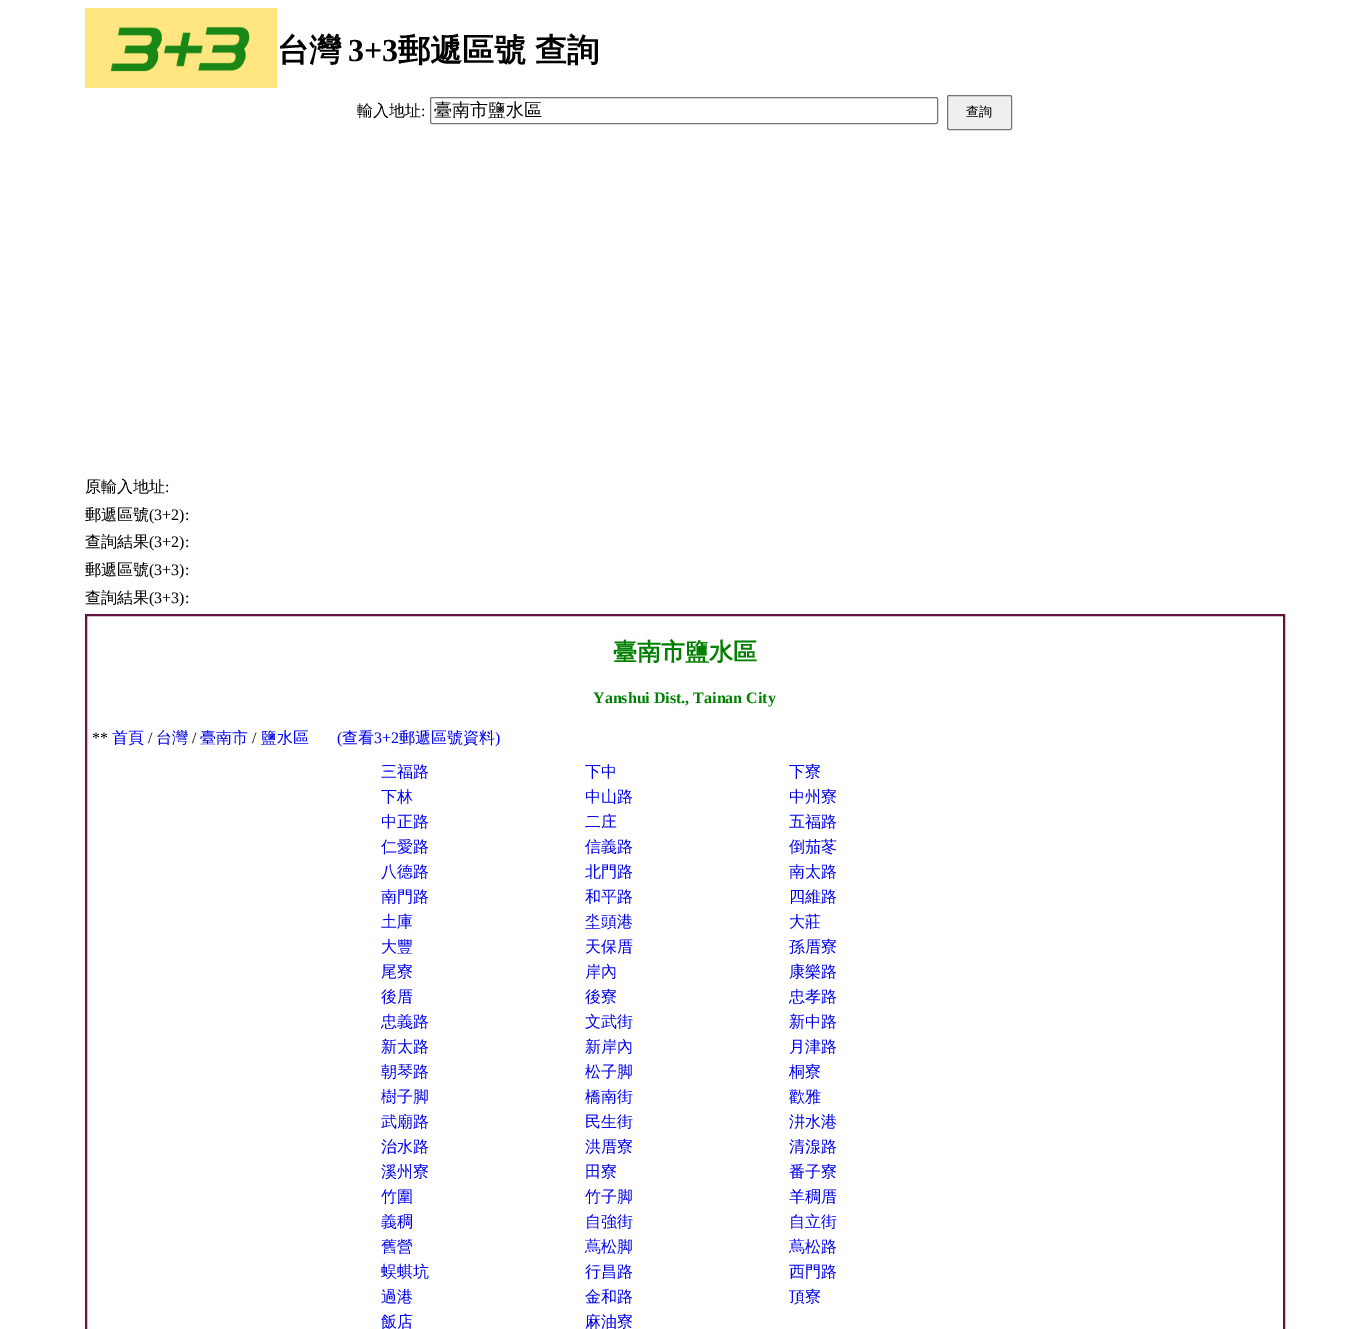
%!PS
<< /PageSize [1369 1329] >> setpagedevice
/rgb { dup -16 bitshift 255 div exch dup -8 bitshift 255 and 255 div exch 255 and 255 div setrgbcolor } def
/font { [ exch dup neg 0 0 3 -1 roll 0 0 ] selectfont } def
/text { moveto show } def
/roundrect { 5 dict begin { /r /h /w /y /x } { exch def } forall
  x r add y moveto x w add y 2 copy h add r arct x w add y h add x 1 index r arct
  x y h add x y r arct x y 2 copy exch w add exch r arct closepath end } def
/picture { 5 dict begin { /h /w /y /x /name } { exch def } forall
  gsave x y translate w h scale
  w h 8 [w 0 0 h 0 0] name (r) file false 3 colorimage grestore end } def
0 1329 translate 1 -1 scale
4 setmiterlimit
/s1 { /WenQuanYiZenHei-Bold 32 font 16#000000 rgb } def
/s2 { /LiberationSerif-Bold 32 font 16#000000 rgb } def
/s3 { /WenQuanYiZenHei-Medium 16 font 16#000000 rgb } def
/s4 { /LiberationSerif-Regular 16 font 16#000000 rgb } def
/s5 { /WenQuanYiZenHei-Medium 18 font 16#000000 rgb } def
/s6 { /WenQuanYiZenHei-Medium 13 font 16#000000 rgb } def
/s7 { /WenQuanYiZenHei-Bold 24 font 16#008000 rgb } def
/s8 { /LiberationSerif-Bold 16 font 16#008000 rgb } def
/s9 { /WenQuanYiZenHei-Medium 16 font 16#0000EE rgb } def
/s10 { /LiberationSerif-Regular 16 font 16#0000EE rgb } def
16#FFFFFF rgb
0 0 1369 1329 rectfill
(pic1.raw) 85 8 192 80 picture
s1
(台灣) 277 61 text
s2
(3+3) 348 61 text
/WenQuanYiZenHei-Bold 32 font
398 61 moveto -1 0 32 (郵遞區號 查詢) widthshow
s3
(輸入地址) 357 116 text
s4
(:) 421 116 text
16#767676 rgb
430.5 97.5 507 26 1.5 roundrect stroke
s5
(臺南市鹽水區) 434 116 text
16#EFEFEF rgb
947.5 95.5 64 34 1.5 roundrect gsave fill grestore
16#767676 rgb
stroke
s6
(查詢) 966 116 text
s3
(原輸入地址) 85 492 text
s4
(:) 165 492 text
s3
(郵遞區號) 85 520 text
s4
(\(3+2\):) 149 520 text
s3
(查詢結果) 85 547 text
s4
(\(3+2\):) 149 547 text
s3
(郵遞區號) 85 575 text
s4
(\(3+3\):) 149 575 text
s3
(查詢結果) 85 603 text
s4
(\(3+3\):) 149 603 text
16#611340 rgb
2 setlinewidth
86 615 1198 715 rectstroke
s7
(臺南市鹽水區) 613 660 text
s8
(Yanshui Dist., Tainan City) 593 703 text
s4
(**) 92 743 text
s9
(首頁) 112 743 text
s4
(/) 148 743 text
s9
(台灣) 156 743 text
s4
(/) 192 743 text
s9
(臺南市) 200 743 text
s4
(/) 252 743 text
s9
(鹽水區) 261 743 text
s10
(\() 337 743 text
s9
(查看) 342 743 text
s10
(3+2) 374 743 text
s9
(郵遞區號資料) 399 743 text
s10
(\)) 495 743 text
s9
(三福路) 381 777 text
(下中) 585 777 text
(下寮) 789 777 text
(下林) 381 802 text
(中山路) 585 802 text
(中州寮) 789 802 text
(中正路) 381 827 text
(二庄) 585 827 text
(五福路) 789 827 text
(仁愛路) 381 852 text
(信義路) 585 852 text
(倒茄苳) 789 852 text
(八德路) 381 877 text
(北門路) 585 877 text
(南太路) 789 877 text
(南門路) 381 902 text
(和平路) 585 902 text
(四維路) 789 902 text
(土庫) 381 927 text
(坔頭港) 585 927 text
(大莊) 789 927 text
(大豐) 381 952 text
(天保厝) 585 952 text
(孫厝寮) 789 952 text
(尾寮) 381 977 text
(岸內) 585 977 text
(康樂路) 789 977 text
(後厝) 381 1002 text
(後寮) 585 1002 text
(忠孝路) 789 1002 text
(忠義路) 381 1027 text
(文武街) 585 1027 text
(新中路) 789 1027 text
(新太路) 381 1052 text
(新岸內) 585 1052 text
(月津路) 789 1052 text
(朝琴路) 381 1077 text
(松子脚) 585 1077 text
(桐寮) 789 1077 text
(樹子脚) 381 1102 text
(橋南街) 585 1102 text
(歡雅) 789 1102 text
(武廟路) 381 1127 text
(民生街) 585 1127 text
(汫水港) 789 1127 text
(治水路) 381 1152 text
(洪厝寮) 585 1152 text
(清湶路) 789 1152 text
(溪州寮) 381 1177 text
(田寮) 585 1177 text
(番子寮) 789 1177 text
(竹圍) 381 1202 text
(竹子脚) 585 1202 text
(羊稠厝) 789 1202 text
(義稠) 381 1227 text
(自強街) 585 1227 text
(自立街) 789 1227 text
(舊營) 381 1252 text
(蔦松脚) 585 1252 text
(蔦松路) 789 1252 text
(蜈蜞坑) 381 1277 text
(行昌路) 585 1277 text
(西門路) 789 1277 text
(過港) 381 1302 text
(金和路) 585 1302 text
(頂寮) 789 1302 text
(飯店) 381 1327 text
(麻油寮) 585 1327 text
showpage
